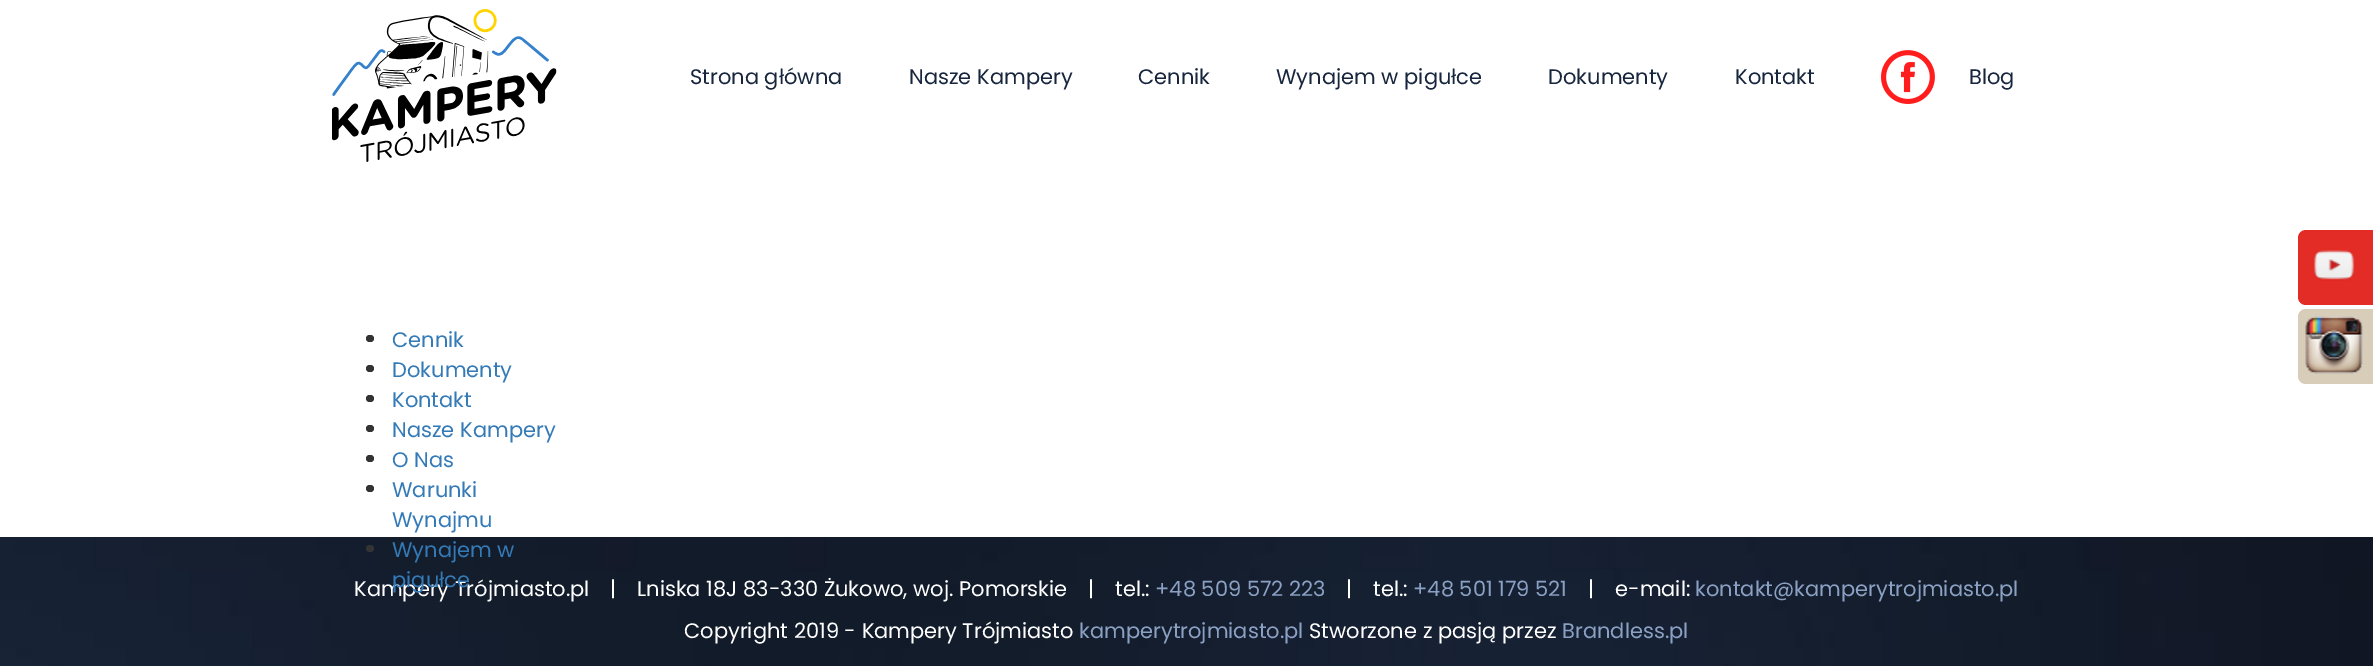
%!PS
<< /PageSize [2373 666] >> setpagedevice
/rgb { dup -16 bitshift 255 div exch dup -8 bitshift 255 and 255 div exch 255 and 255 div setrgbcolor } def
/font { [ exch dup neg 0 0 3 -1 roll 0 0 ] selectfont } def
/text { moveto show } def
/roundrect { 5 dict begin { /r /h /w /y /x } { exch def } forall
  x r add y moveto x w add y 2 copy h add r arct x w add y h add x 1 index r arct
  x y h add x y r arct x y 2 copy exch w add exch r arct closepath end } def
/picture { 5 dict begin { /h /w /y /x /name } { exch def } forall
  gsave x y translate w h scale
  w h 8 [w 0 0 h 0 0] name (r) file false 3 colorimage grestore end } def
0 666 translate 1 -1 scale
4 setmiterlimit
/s1 { /Poppins-Regular 21 font 16#17263D rgb } def
/s2 { /Poppins-Regular 21 font 16#337AB7 rgb } def
/s3 { /Poppins-Regular 21 font 16#FFFFFF rgb } def
/s4 { /Poppins-Regular 21 font 16#8BA1C4 rgb } def
16#FFFFFF rgb
0 0 2373 666 rectfill
(pic1.raw) 332 9 225 153 picture
s1
(Strona główna) 690 84 text
(Nasze Kampery) 909 84 text
(Cennik) 1138 84 text
(Wynajem w pigułce) 1276 84 text
(Dokumenty) 1548 84 text
(Kontakt) 1735 84 text
(pic2.raw) 1881 50 54 54 picture
(Blog) 1969 84 text
16#E32C26 rgb
2298 230 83 75 8 roundrect fill
(pic3.raw) 2314 250 41 31 picture
16#D8CDB9 rgb
2298 309 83 75 8 roundrect fill
(pic4.raw) 2305 316 58 58 picture
16#333333 rgb
366 335 8 7 3.5 roundrect fill
s2
(Cennik) 392 347 text
16#333333 rgb
366 365 8 7 3.5 roundrect fill
s2
(Dokumenty) 392 377 text
16#333333 rgb
366 395 8 7 3.5 roundrect fill
s2
(Kontakt) 392 407 text
16#333333 rgb
366 425 8 7 3.5 roundrect fill
s2
(Nasze Kampery) 392 437 text
16#333333 rgb
366 455 8 7 3.5 roundrect fill
s2
(O Nas) 392 467 text
16#333333 rgb
366 485 8 7 3.5 roundrect fill
s2
(Warunki) 392 497 text
(Wynajmu) 392 527 text
(pic5.raw) 0 537 2373 129 picture
16#333333 rgb
366 545 8 7 3.5 roundrect fill
s2
(Wynajem w) 392 557 text
s3
(Kampery Trójmiasto.pl) 354 596 text
s2
(pigułce) 392 587 text
s3
(|) 610 596 text
(Lniska 18J 83-330 Żukowo, woj. Pomorskie) 637 596 text
(|) 1088 596 text
(tel.:) 1115 596 text
s4
(+48 509 572 223) 1155 596 text
s3
(|) 1346 596 text
(tel.:) 1373 596 text
s4
(+48 501 179 521) 1413 596 text
s3
(|) 1588 596 text
(e-mail:) 1615 596 text
s4
(kontakt@kamperytrojmiasto.pl) 1695 596 text
s3
(Copyright 2019 - Kampery Trójmiasto) 684 638 text
s4
(kamperytrojmiasto.pl) 1079 638 text
s3
(Stworzone z pasją przez) 1309 638 text
s4
(Brandless.pl) 1562 638 text
showpage
